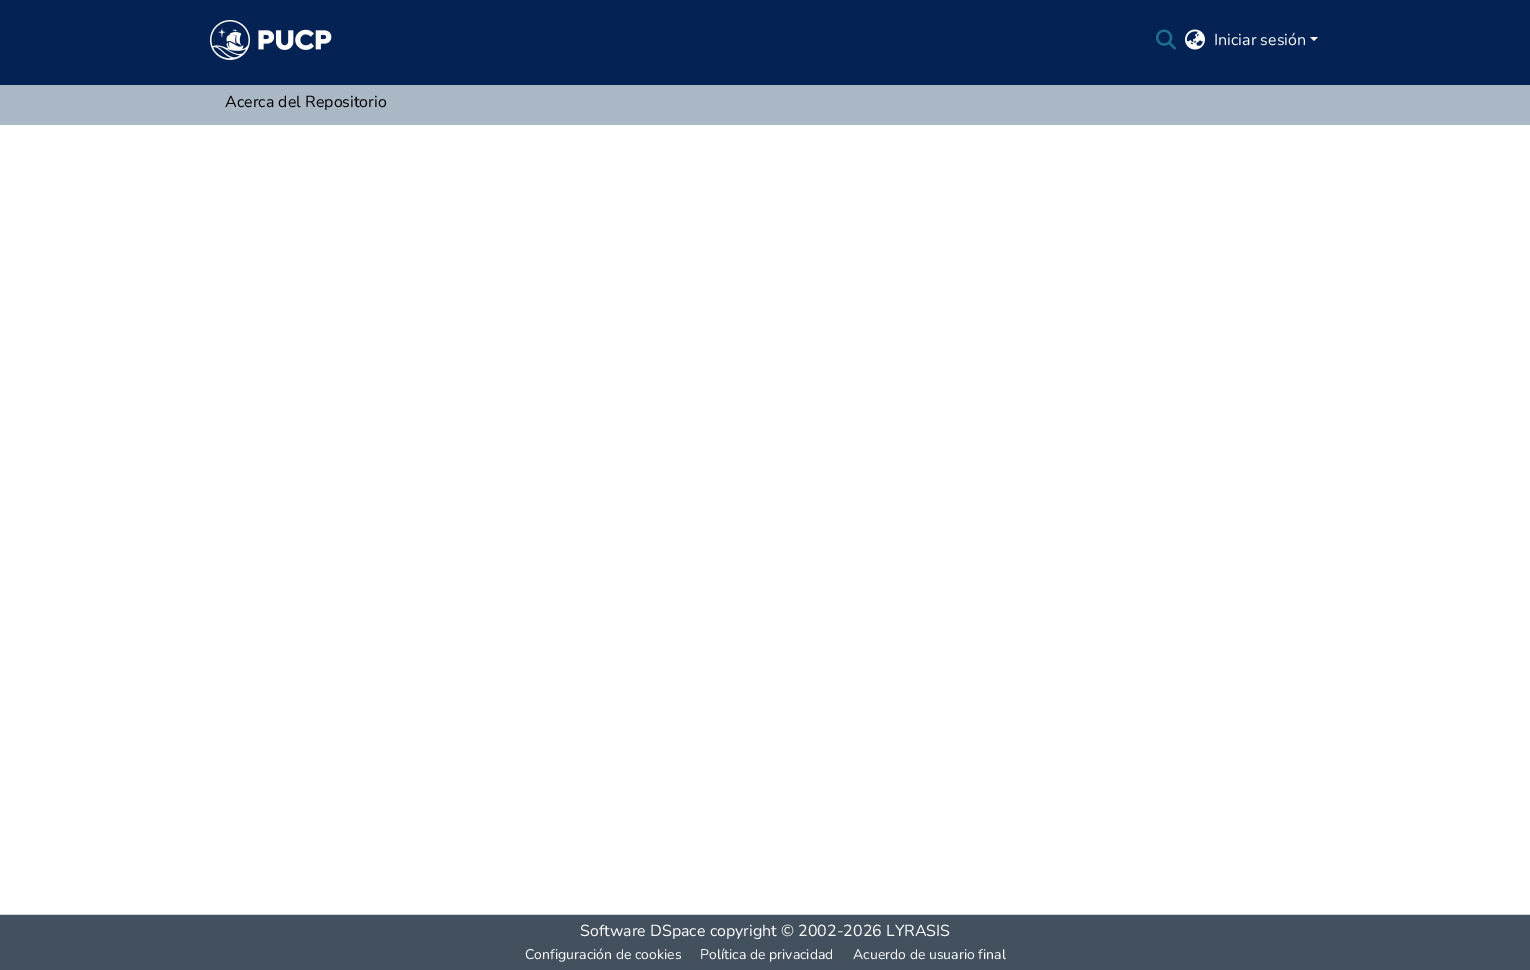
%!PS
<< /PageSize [1530 970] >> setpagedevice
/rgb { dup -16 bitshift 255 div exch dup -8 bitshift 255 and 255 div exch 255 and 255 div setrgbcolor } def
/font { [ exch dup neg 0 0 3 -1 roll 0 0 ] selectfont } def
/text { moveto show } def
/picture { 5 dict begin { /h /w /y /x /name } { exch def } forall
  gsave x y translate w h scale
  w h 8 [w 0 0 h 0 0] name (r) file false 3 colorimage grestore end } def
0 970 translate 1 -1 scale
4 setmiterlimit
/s1 { /Nunito-Regular 16 font 16#FFFFFF rgb } def
/s2 { /Nunito-Regular 16 font 16#000000 rgb } def
/s3 { /Nunito-Regular 14 font 16#FFFFFF rgb } def
16#FFFFFF rgb
0 0 1530 970 rectfill
16#042354 rgb
0 0 1530 85 rectfill
(pic1.raw) 210 20 122 40 picture
(pic2.raw) 1156 29 20 21 picture
(pic3.raw) 1185 29 20 21 picture
s1
(Iniciar sesión) 1214 45 text
1310 37 moveto 1318 37 lineto 1314 41 lineto closepath fill
16#AAB8C6 rgb
0 85 1530 40 rectfill
s2
(Acerca del Repositorio) 225 107 text
16#43515F rgb
0 915 1530 55 rectfill
16#CED4DA rgb
0 914 1530 1 rectfill
s1
(Software DSpace copyright © 2002-2026 LYRASIS) 580 936 text
s3
(Configuración de cookies) 525 959 text
16#495057 rgb
690 943 1 23 rectfill
s3
(Política de privacidad) 700 959 text
16#495057 rgb
843 943 1 23 rectfill
s3
(Acuerdo de usuario final) 853 959 text
showpage
